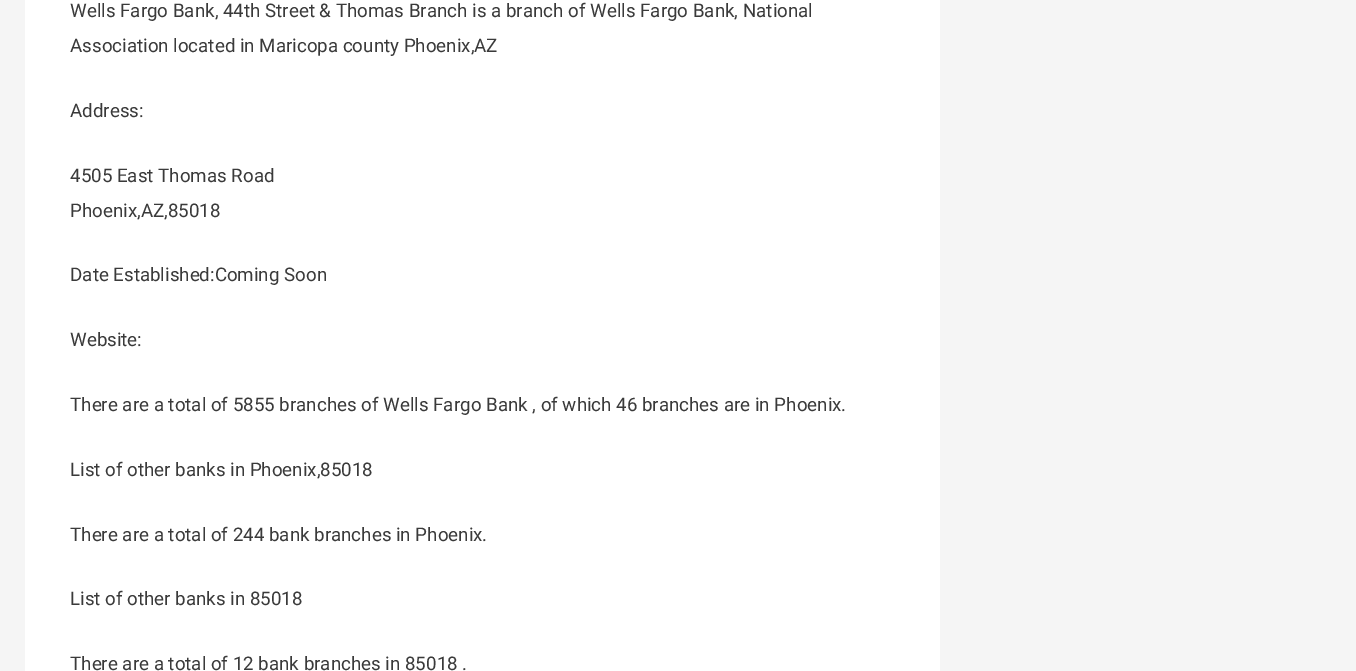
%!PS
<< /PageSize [1356 671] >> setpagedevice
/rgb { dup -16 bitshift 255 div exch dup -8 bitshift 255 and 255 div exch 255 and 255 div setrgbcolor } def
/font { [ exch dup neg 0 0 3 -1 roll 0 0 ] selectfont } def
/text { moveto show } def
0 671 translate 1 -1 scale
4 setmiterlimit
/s1 { /Roboto-Regular 18.75 font 16#3A3A3A rgb } def
16#F5F5F5 rgb
0 0 1356 671 rectfill
16#FFFFFF rgb
25 0 915 671 rectfill
s1
(Wells Fargo Bank, 44th Street & Thomas Branch is a branch of Wells Fargo Bank, National) 70 17 text
(Association located in Maricopa county Phoenix,AZ) 70 52 text
(Address:) 70 117 text
(4505 East Thomas Road) 70 182 text
(Phoenix,AZ,85018) 70 217 text
(Date Established:Coming Soon) 70 281 text
(Website:) 70 346 text
(There are a total of 5855 branches of Wells Fargo Bank , of which 46 branches are in Phoenix.) 70 411 text
(List of other banks in Phoenix,85018) 70 476 text
(There are a total of 244 bank branches in Phoenix.) 70 541 text
(List of other banks in 85018) 70 605 text
(There are a total of 12 bank branches in 85018 .) 70 670 text
showpage
